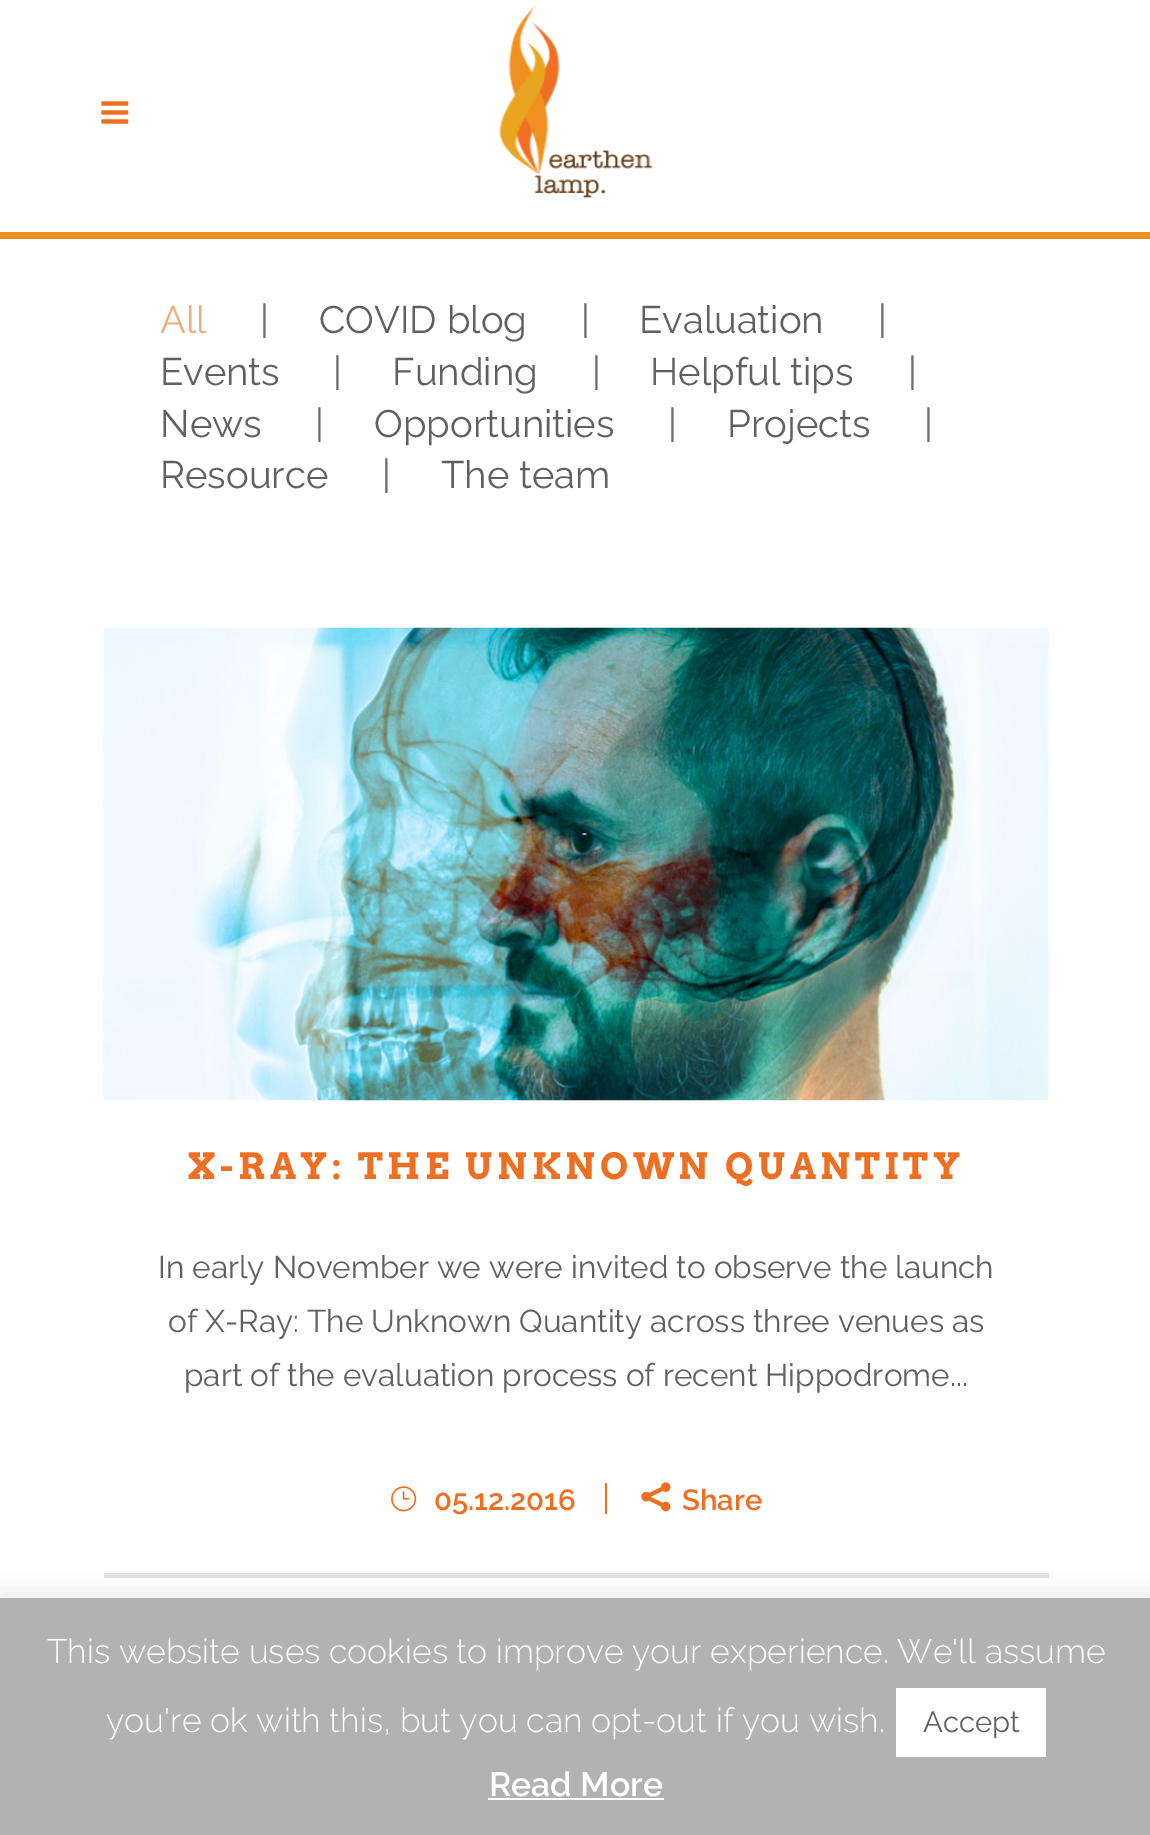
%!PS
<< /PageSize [1150 1835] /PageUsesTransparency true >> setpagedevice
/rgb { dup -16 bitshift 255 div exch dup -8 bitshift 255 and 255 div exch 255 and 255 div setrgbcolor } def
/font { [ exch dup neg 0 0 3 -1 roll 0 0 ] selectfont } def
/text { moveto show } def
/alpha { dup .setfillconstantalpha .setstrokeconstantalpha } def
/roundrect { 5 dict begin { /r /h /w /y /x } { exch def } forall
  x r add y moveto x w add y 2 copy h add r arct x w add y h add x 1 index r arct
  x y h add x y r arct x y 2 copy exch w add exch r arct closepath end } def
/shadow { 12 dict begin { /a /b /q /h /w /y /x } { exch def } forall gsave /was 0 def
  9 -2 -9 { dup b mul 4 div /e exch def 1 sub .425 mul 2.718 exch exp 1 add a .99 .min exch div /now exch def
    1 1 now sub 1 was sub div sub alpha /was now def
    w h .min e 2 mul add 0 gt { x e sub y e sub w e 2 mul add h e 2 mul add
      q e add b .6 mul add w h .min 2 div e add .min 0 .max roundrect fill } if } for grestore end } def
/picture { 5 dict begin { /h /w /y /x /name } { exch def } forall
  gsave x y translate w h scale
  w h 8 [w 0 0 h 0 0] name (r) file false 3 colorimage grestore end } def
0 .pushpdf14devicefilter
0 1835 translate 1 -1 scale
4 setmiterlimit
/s1 { /Raleway-Regular 38.25 font 16#ECAE80 rgb } def
/s2 { /Raleway-Regular 38.25 font 16#696969 rgb } def
/s3 { /Raleway-Regular 38.25 font 16#616060 rgb } def
/s4 { /Raleway-Regular 31.5 font 16#616060 rgb } def
/s5 { /Raleway-SemiBold 29.25 font 16#EF6F22 rgb } def
/s6 { /Raleway-Light 33.75 font 16#FFFFFF rgb } def
/s7 { /Raleway-Regular 29.25 font 16#616060 rgb } def
/s8 { /Raleway-SemiBold 33.75 font 16#FFFFFF rgb } def
16#FFFFFF rgb
0 0 1150 1835 rectfill
16#ED8F22 rgb
0 232 1150 7 rectfill
(pic1.raw) 101 101 28 23 picture
(pic2.raw) 499 5 154 193 picture
s1
(All) 160 333 text
s2
(|) 260 333 text
s3
(COVID blog) 319 333 text
s2
(|) 581 333 text
s3
(Evaluation) 639 333 text
s2
(|) 878 333 text
s3
(Events) 160 385 text
s2
(|) 333 385 text
s3
(Funding) 392 385 text
s2
(|) 592 385 text
s3
(Helpful tips) 650 385 text
s2
(|) 908 385 text
s3
(News) 160 437 text
s2
(|) 315 437 text
s3
(Opportunities) 374 437 text
s2
(|) 668 437 text
s3
(Projects) 727 437 text
s2
(|) 924 437 text
s3
(Resource) 160 488 text
s2
(|) 382 488 text
s3
(The team) 441 488 text
16#E2E2E2 rgb
104 1573 945 5 rectfill
(pic3.raw) 103 627 946 474 picture
/Arvo-Bold 36 font
16#EF6F22 rgb
188 1179 moveto 4.5 0 (X-RAY: THE UNKNOWN QUANTITY) ashow
s4
(In early November we were invited to observe the launch) 158 1278 text
(of X-Ray: The Unknown Quantity across three venues as) 168 1332 text
(part of the evaluation process of recent Hippodrome...) 184 1386 text
(pic4.raw) 391 1486 26 26 picture
s5
(05.12.2016) 434 1510 text
605 1483 2 31 rectfill
(pic5.raw) 641 1482 30 30 picture
(Share) 682 1510 text
16#ACABAB rgb
0 1595 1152 239 0 11 0.3 shadow
16#B2B2B2 rgb
0 1598 1150 237 rectfill
s6
(This website uses cookies to improve your experience. We'll assume) 47 1663 text
(you're ok with this, but you can opt-out if you wish.) 106 1732 text
896 1688 150 69 rectfill
s7
(Accept) 923 1732 text
s8
(Read More) 489 1796 text
488 1798 176 2 rectfill
.poppdf14devicefilter showpage
